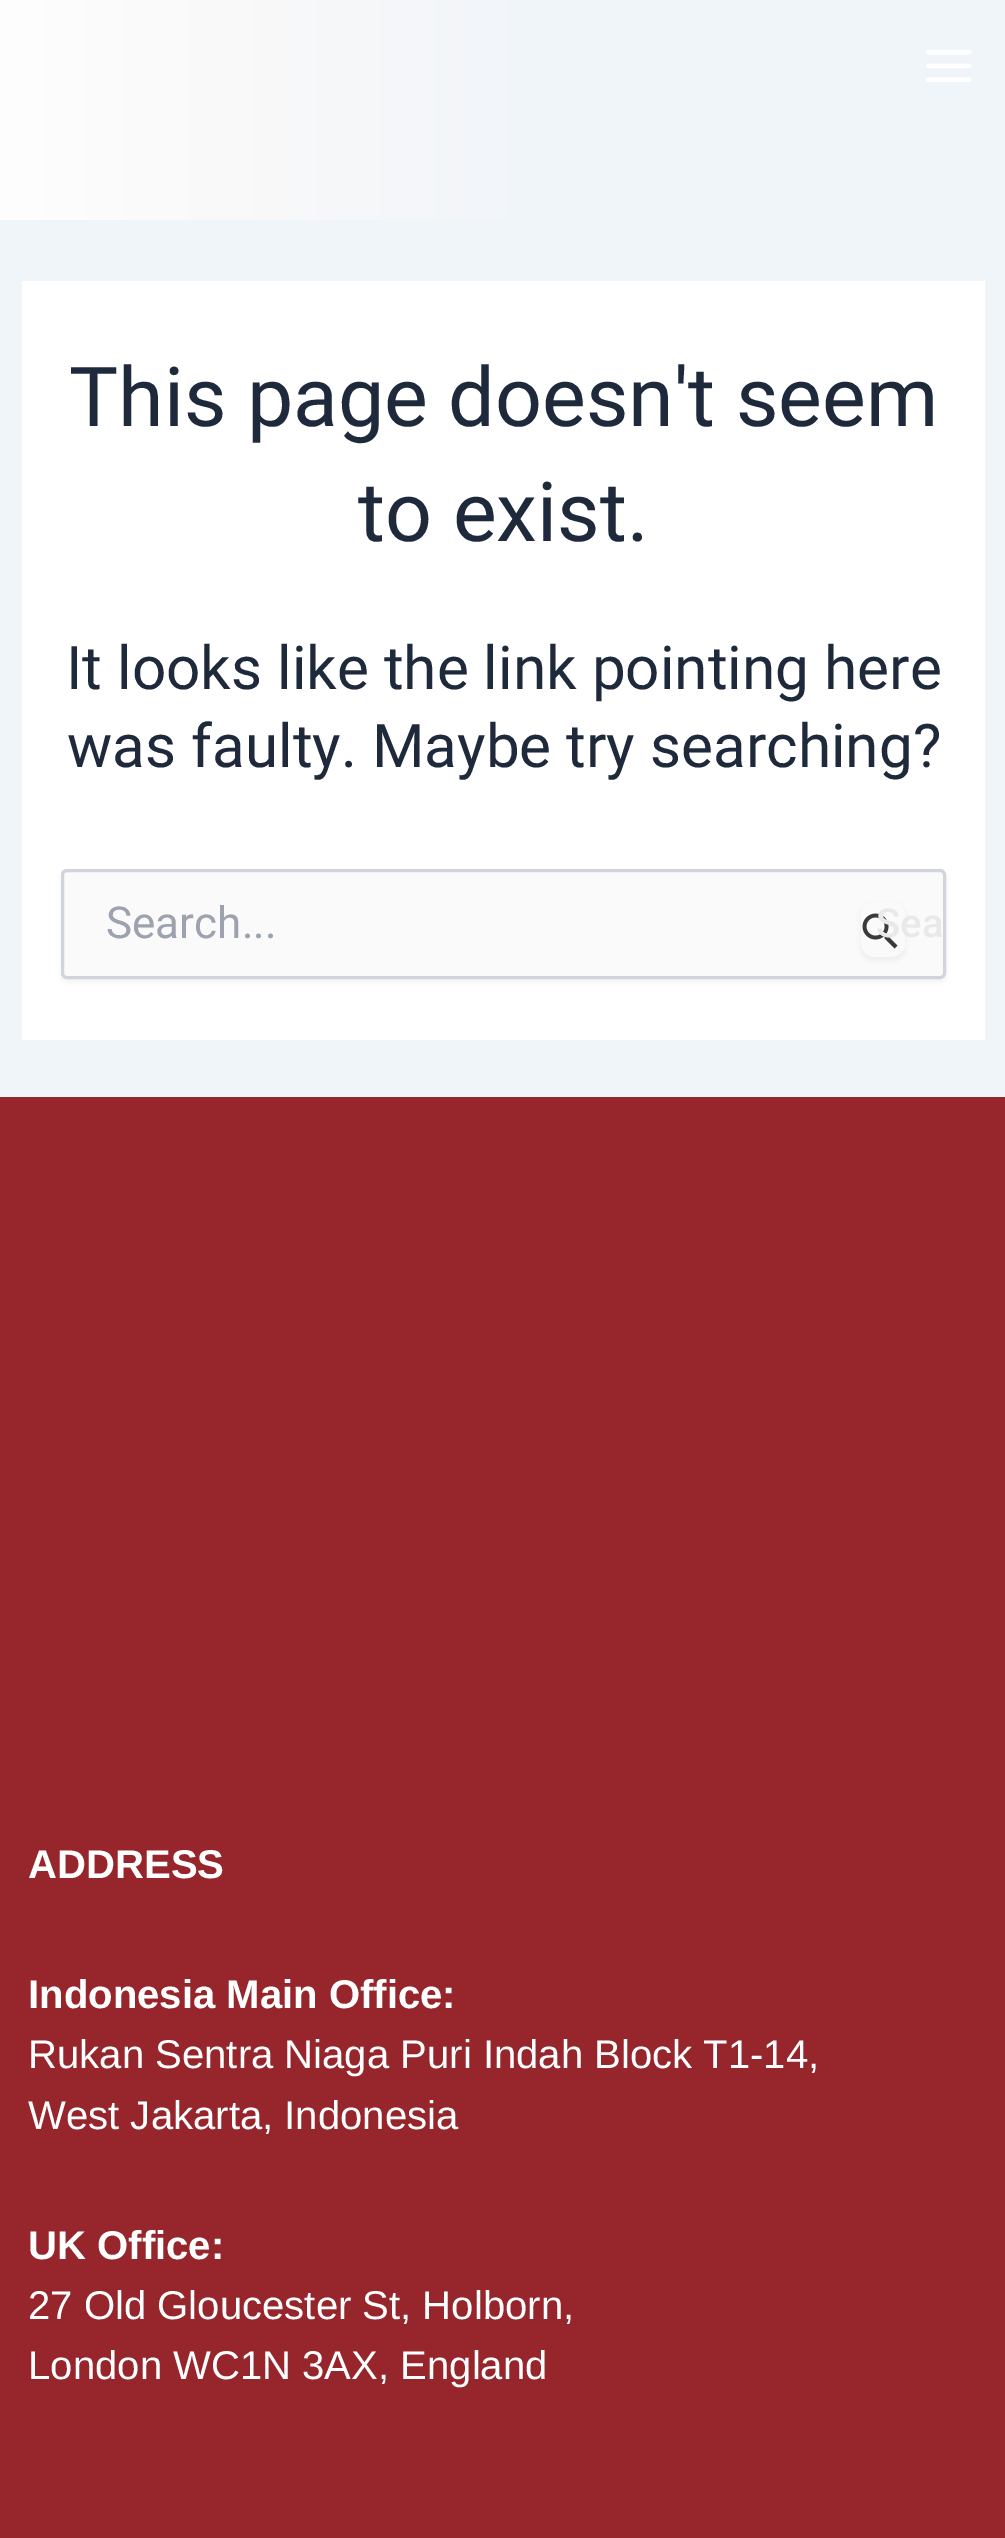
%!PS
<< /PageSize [1005 2538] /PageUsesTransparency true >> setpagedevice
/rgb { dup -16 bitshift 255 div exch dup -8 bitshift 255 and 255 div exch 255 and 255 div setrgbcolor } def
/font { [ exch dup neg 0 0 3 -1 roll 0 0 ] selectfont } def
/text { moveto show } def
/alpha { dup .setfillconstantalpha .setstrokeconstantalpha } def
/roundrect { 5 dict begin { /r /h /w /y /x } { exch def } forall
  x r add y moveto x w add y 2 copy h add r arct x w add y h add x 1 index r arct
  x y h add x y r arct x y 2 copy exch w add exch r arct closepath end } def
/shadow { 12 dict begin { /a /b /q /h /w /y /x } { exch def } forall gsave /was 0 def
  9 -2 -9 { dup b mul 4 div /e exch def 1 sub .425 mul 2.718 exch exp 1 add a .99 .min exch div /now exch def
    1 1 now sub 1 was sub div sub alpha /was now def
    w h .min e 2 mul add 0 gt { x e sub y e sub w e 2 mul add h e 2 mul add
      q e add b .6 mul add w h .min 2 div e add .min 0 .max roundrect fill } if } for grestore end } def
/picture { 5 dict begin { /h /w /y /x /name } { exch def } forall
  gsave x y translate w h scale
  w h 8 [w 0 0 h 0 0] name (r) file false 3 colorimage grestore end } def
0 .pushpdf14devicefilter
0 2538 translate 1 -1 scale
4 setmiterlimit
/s1 { /Roboto-Regular 82.5 font 16#1E293B rgb } def
/s2 { /Roboto-Regular 60.25 font 16#1E293B rgb } def
/s3 { /Roboto-Regular 44 font 16#9CA3AF rgb } def
/s4 { /Roboto-Medium 40.1 font 16#E9E9E9 rgb } def
/s5 { /LiberationSans-Bold 40.1 font 16#FFFFFF rgb } def
/s6 { /LiberationSans-Regular 40.1 font 16#FFFFFF rgb } def
16#F0F5FA rgb
0 0 1005 2538 rectfill
gsave 0 0 moveto 506 0 lineto 506 220 lineto 0 220 lineto closepath clip newpath
<< /ShadingType 2 /ColorSpace /DeviceRGB /Coords [0 110 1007 110] /Extend [true true] /Function << /FunctionType 3 /Domain [0 1] /Functions [<< /FunctionType 2 /Domain [0 1] /C0 [0.996 0.996 0.996] /C1 [0.976 0.976 0.976] /N 1 >> << /FunctionType 2 /Domain [0 1] /C0 [0.976 0.976 0.976] /C1 [0.941 0.957 0.976] /N 1 >> << /FunctionType 2 /Domain [0 1] /C0 [0.941 0.957 0.976] /C1 [0.941 0.957 0.976] /N 1 >>] /Bounds [0.25 0.6] /Encode [0 1 0 1 0 1] >> >> shfill grestore
(pic1.raw) 926 50 46 32 picture
16#FFFFFF rgb
22 281 963 759 rectfill
s1
(This page doesn't seem) 69 426 text
(to exist.) 358 541 text
s2
(It looks like the link pointing here) 66 689 text
(was faulty. Maybe try searching?) 67 767 text
16#000000 rgb
61 872 885 110 6 3 0.05 shadow
16#FAFAFA rgb
62.5 870.5 882 107 4.5 roundrect gsave fill grestore
16#D1D5DB rgb
3 setlinewidth
stroke
s3
(Search...) 106 938 text
gsave
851 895 moveto 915 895 lineto 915 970 lineto 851 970 lineto closepath 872 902 moveto 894 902 lineto 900 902 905 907 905 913 curveto 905 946 lineto 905 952 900 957 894 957 curveto 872 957 lineto 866 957 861 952 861 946 curveto 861 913 lineto 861 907 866 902 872 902 curveto closepath eoclip newpath
16#000000 rgb
861 905 44 55 11 3 0.05 shadow
grestore
(pic2.raw) 862 913 36 36 picture
s4
(Sea) 876 937 text
16#96262C rgb
0 1097 1005 1441 rectfill
s5
(ADDRESS) 28 1878 text
(Indonesia Main Office:) 28 2008 text
s6
(Rukan Sentra Niaga Puri Indah Block T1-14,) 28 2068 text
(West Jakarta, Indonesia) 28 2129 text
s5
(UK Office:) 28 2259 text
s6
(27 Old Gloucester St, Holborn,) 28 2319 text
(London WC1N 3AX, England) 28 2379 text
.poppdf14devicefilter showpage
